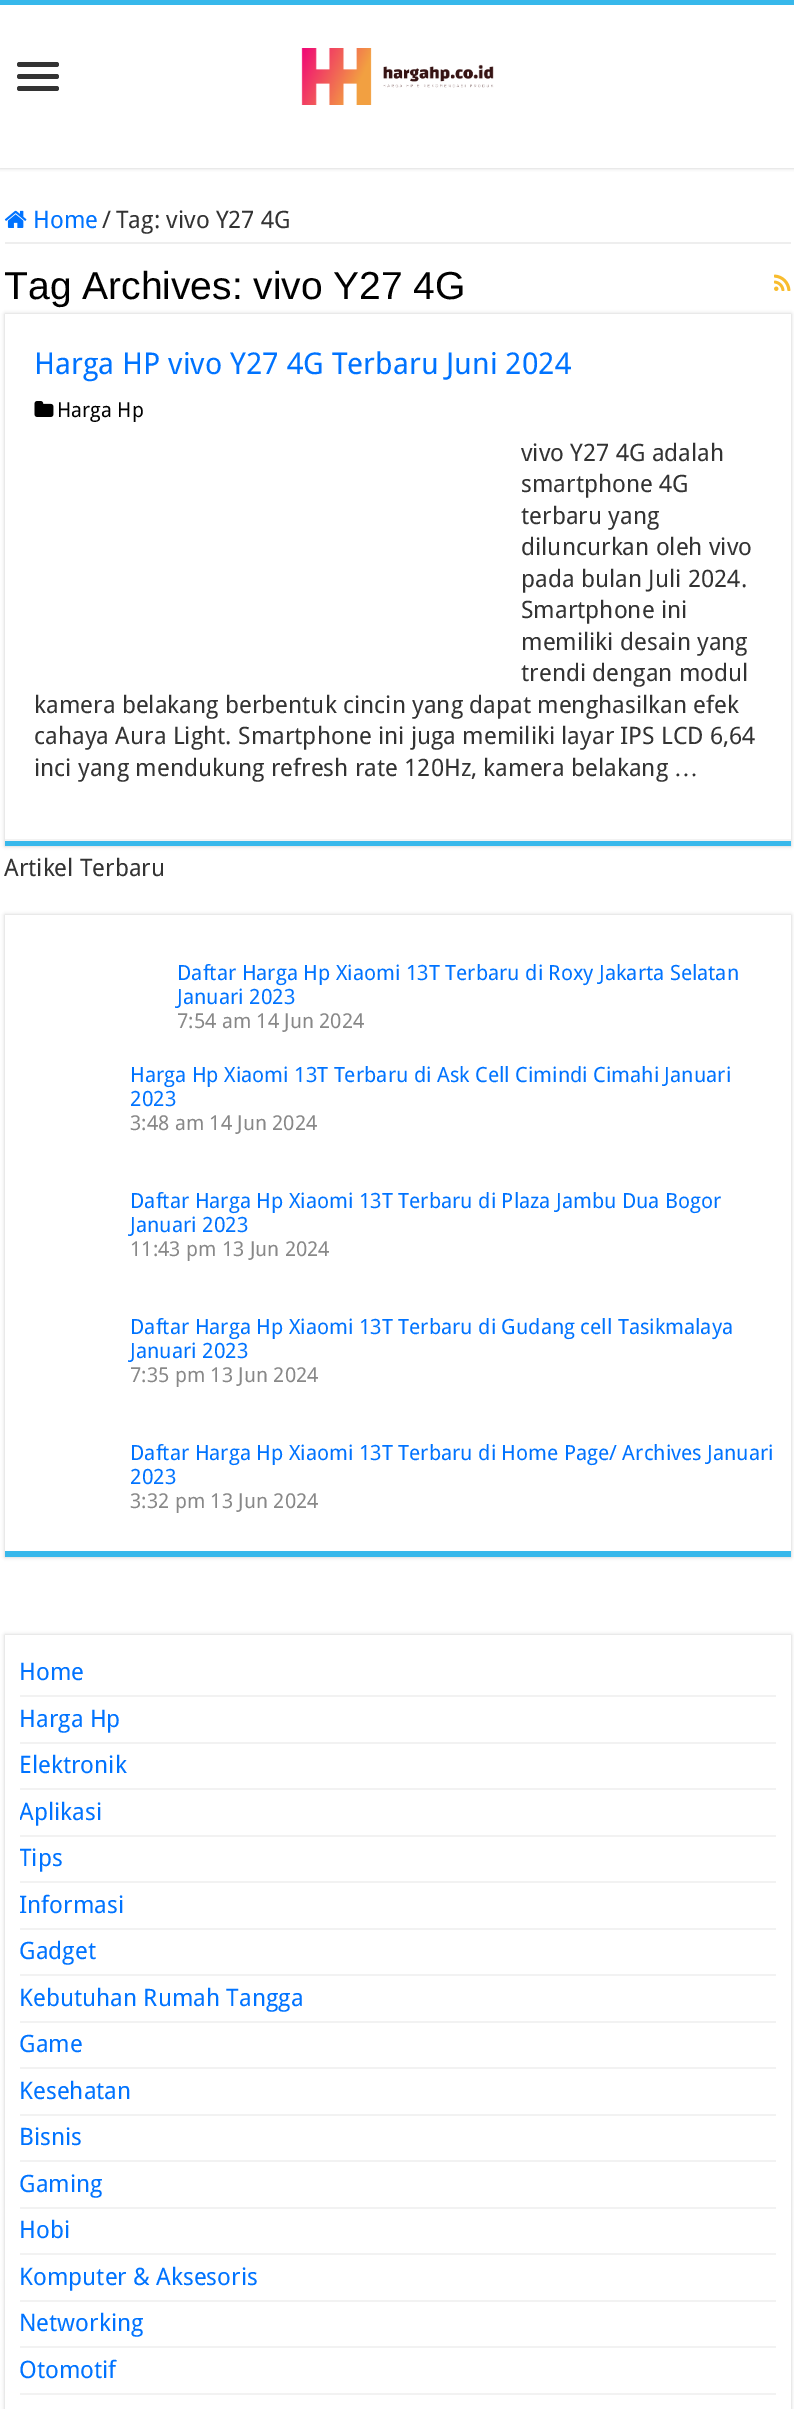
%!PS
<< /PageSize [794 2409] /PageUsesTransparency true >> setpagedevice
/rgb { dup -16 bitshift 255 div exch dup -8 bitshift 255 and 255 div exch 255 and 255 div setrgbcolor } def
/font { [ exch dup neg 0 0 3 -1 roll 0 0 ] selectfont } def
/text { moveto show } def
/alpha { dup .setfillconstantalpha .setstrokeconstantalpha } def
/roundrect { 5 dict begin { /r /h /w /y /x } { exch def } forall
  x r add y moveto x w add y 2 copy h add r arct x w add y h add x 1 index r arct
  x y h add x y r arct x y 2 copy exch w add exch r arct closepath end } def
/shadow { 12 dict begin { /a /b /q /h /w /y /x } { exch def } forall gsave /was 0 def
  9 -2 -9 { dup b mul 4 div /e exch def 1 sub .425 mul 2.718 exch exp 1 add a .99 .min exch div /now exch def
    1 1 now sub 1 was sub div sub alpha /was now def
    w h .min e 2 mul add 0 gt { x e sub y e sub w e 2 mul add h e 2 mul add
      q e add b .6 mul add w h .min 2 div e add .min 0 .max roundrect fill } if } for grestore end } def
/picture { 5 dict begin { /h /w /y /x /name } { exch def } forall
  gsave x y translate w h scale
  w h 8 [w 0 0 h 0 0] name (r) file false 3 colorimage grestore end } def
0 .pushpdf14devicefilter
0 2409 translate 1 -1 scale
4 setmiterlimit
/s1 { /DroidSans-Regular 24 font 16#0073FF rgb } def
/s2 { /DroidSans-Regular 24 font 16#333333 rgb } def
/s3 { /LiberationSans-Regular 39 font 16#000000 rgb } def
/s4 { /DroidSans-Regular 30 font 16#0073FF rgb } def
/s5 { /DroidSans-Regular 20.5 font 16#000000 rgb } def
/s6 { /LiberationSerif-Regular 24 font 16#333333 rgb } def
/s7 { /DroidSans-Regular 21 font 16#0073FF rgb } def
/s8 { /DroidSans-Regular 20.5 font 16#888888 rgb } def
16#FFFFFF rgb
0 0 794 2409 rectfill
gsave
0 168 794 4 rectclip
16#CACACA rgb
0 0 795 168 0 2 1 shadow
grestore
16#37B8EB rgb
0 0 794 5 rectfill
16#333333 rgb
17 62 42 5 2.5 roundrect fill
17 74 42 5 2.5 roundrect fill
17 86 42 5 2.5 roundrect fill
(pic1.raw) 301 48 193 57 picture
16#EEEEEE rgb
5 242 786 2 rectfill
(pic2.raw) 4 210 23 18 picture
s1
(Home) 33 228 text
s2
(/) 102 228 text
(Tag: vivo Y27 4G) 116 228 text
16#CACACA rgb
5 314 786 532 0 2 1 shadow
gsave
5 258 786 56 rectclip
s3
(Tag Archives:) 4 299 text
grestore
s3
(vivo Y27 4G) 253 299 text
(pic3.raw) 774 274 17 17 picture
16#FFFFFF rgb
5 314 786 525 rectfill
16#37B8EB rgb
5 841 786 5 rectfill
16#F2F2F2 rgb
5 839 786 2 rectfill
s4
(Harga HP vivo Y27 4G Terbaru Juni 2024) 34 374 text
(pic4.raw) 34 401 20 16 picture
s5
(Harga Hp) 57 417 text
s2
(vivo Y27 4G adalah) 521 461 text
(smartphone 4G) 521 492 text
(terbaru yang) 521 524 text
(diluncurkan oleh vivo) 521 555 text
(pada bulan Juli 2024.) 521 587 text
(Smartphone ini) 521 618 text
(memiliki desain yang) 521 650 text
(trendi dengan modul) 521 681 text
(kamera belakang berbentuk cincin yang dapat menghasilkan efek) 34 713 text
(cahaya Aura Light. Smartphone ini juga memiliki layar IPS LCD 6,64) 34 744 text
(inci yang mendukung refresh rate 120Hz, kamera belakang) 34 776 text
s6
(…) 674 776 text
s2
(Artikel Terbaru) 4 876 text
16#CACACA rgb
5 915 786 642 0 2 1 shadow
16#FFFFFF rgb
5 915 786 636 rectfill
16#37B8EB rgb
5 1551 786 6 rectfill
s7
(Daftar Harga Hp Xiaomi 13T Terbaru di Roxy Jakarta Selatan) 177 980 text
(Januari 2023) 177 1004 text
s8
(7:54 am 14 Jun 2024) 177 1028 text
s7
(Harga Hp Xiaomi 13T Terbaru di Ask Cell Cimindi Cimahi Januari) 130 1082 text
(2023) 130 1106 text
s8
(3:48 am 14 Jun 2024) 130 1130 text
s7
(Daftar Harga Hp Xiaomi 13T Terbaru di Plaza Jambu Dua Bogor) 130 1208 text
(Januari 2023) 130 1232 text
s8
(11:43 pm 13 Jun 2024) 130 1256 text
s7
(Daftar Harga Hp Xiaomi 13T Terbaru di Gudang cell Tasikmalaya) 130 1334 text
(Januari 2023) 130 1358 text
s8
(7:35 pm 13 Jun 2024) 130 1382 text
s7
(Daftar Harga Hp Xiaomi 13T Terbaru di Home Page/ Archives Januari) 130 1460 text
(2023) 130 1484 text
s8
(3:32 pm 13 Jun 2024) 130 1508 text
16#CACACA rgb
5 1635 786 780 0 2 1 shadow
16#FFFFFF rgb
5 1635 786 774 rectfill
16#F2F2F2 rgb
20 1695 756 2 rectfill
s1
(Home) 19 1680 text
16#F2F2F2 rgb
20 1742 756 2 rectfill
s1
(Harga Hp) 19 1727 text
16#F2F2F2 rgb
20 1788 756 2 rectfill
s1
(Elektronik) 19 1773 text
16#F2F2F2 rgb
20 1835 756 2 rectfill
gsave
20 1790 756 45 rectclip
s1
(Aplikasi) 19 1820 text
grestore
20 1881 756 2 rectfill
gsave
20 1836 756 45 rectclip
s1
(Tips) 19 1866 text
grestore
20 1928 756 2 rectfill
s1
(Informasi) 19 1913 text
16#F2F2F2 rgb
20 1974 756 2 rectfill
s1
(Gadget) 19 1959 text
16#F2F2F2 rgb
20 2021 756 2 rectfill
s1
(Kebutuhan Rumah Tangga) 19 2006 text
16#F2F2F2 rgb
20 2067 756 2 rectfill
s1
(Game) 19 2052 text
16#F2F2F2 rgb
20 2114 756 2 rectfill
s1
(Kesehatan) 19 2099 text
16#F2F2F2 rgb
20 2160 756 2 rectfill
s1
(Bisnis) 19 2145 text
16#F2F2F2 rgb
20 2207 756 2 rectfill
s1
(Gaming) 19 2192 text
16#F2F2F2 rgb
20 2253 756 2 rectfill
s1
(Hobi) 19 2238 text
16#F2F2F2 rgb
20 2300 756 2 rectfill
s1
(Komputer & Aksesoris) 19 2285 text
16#F2F2F2 rgb
20 2346 756 2 rectfill
s1
(Networking) 19 2331 text
16#F2F2F2 rgb
20 2393 756 2 rectfill
s1
(Otomotif) 19 2378 text
.poppdf14devicefilter showpage
